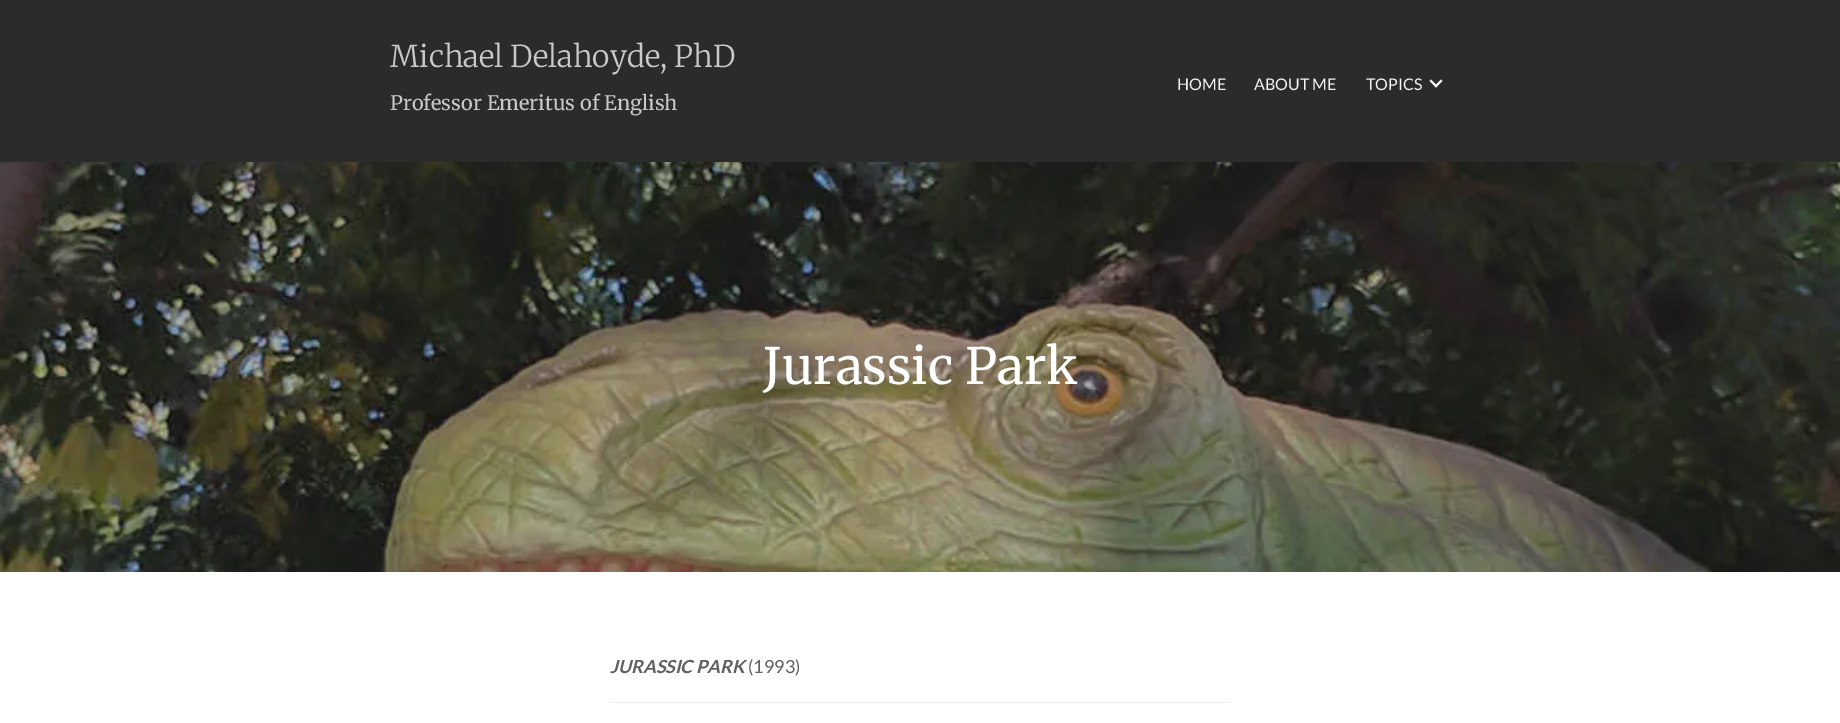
%!PS
<< /PageSize [1840 723] >> setpagedevice
/rgb { dup -16 bitshift 255 div exch dup -8 bitshift 255 and 255 div exch 255 and 255 div setrgbcolor } def
/font { [ exch dup neg 0 0 3 -1 roll 0 0 ] selectfont } def
/text { moveto show } def
/picture { 5 dict begin { /h /w /y /x /name } { exch def } forall
  gsave x y translate w h scale
  w h 8 [w 0 0 h 0 0] name (r) file false 3 colorimage grestore end } def
0 723 translate 1 -1 scale
4 setmiterlimit
/s1 { /Merriweather-Light 30 font 16#C9C9C9 rgb } def
/s2 { /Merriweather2-Light 20 font 16#C9C9C9 rgb } def
/s3 { /Lato-Regular 16 font 16#F5F5F5 rgb } def
/s4 { /Merriweather2-Light 50 font 16#FFFFFF rgb } def
/s5 { /Lato-BoldItalic 18 font 16#606060 rgb } def
/s6 { /Lato-Regular 18 font 16#606060 rgb } def
16#FFFFFF rgb
0 0 1840 723 rectfill
16#2B2B2B rgb
0 0 1840 162 rectfill
s1
(Michael Delahoyde, PhD) 390 67 text
s2
(Professor Emeritus of English) 390 110 text
s3
(HOME) 1177 90 text
(ABOUT ME) 1254 90 text
(TOPICS) 1366 90 text
1441 79.5 moveto 1442.5 81 lineto 1436 87.5 lineto 1434.5 86 lineto closepath fill
1431 79.5 moveto 1437.5 86 lineto 1436 87.5 lineto 1429.5 81 lineto closepath fill
(pic1.raw) 0 162 1840 410 picture
s4
(Jurassic Park) 763 384 text
s5
(JURASSIC PARK) 610 673 text
s6
(\(1993\)) 748 673 text
16#EEEEEE rgb
610 702 620 1 rectfill
showpage
